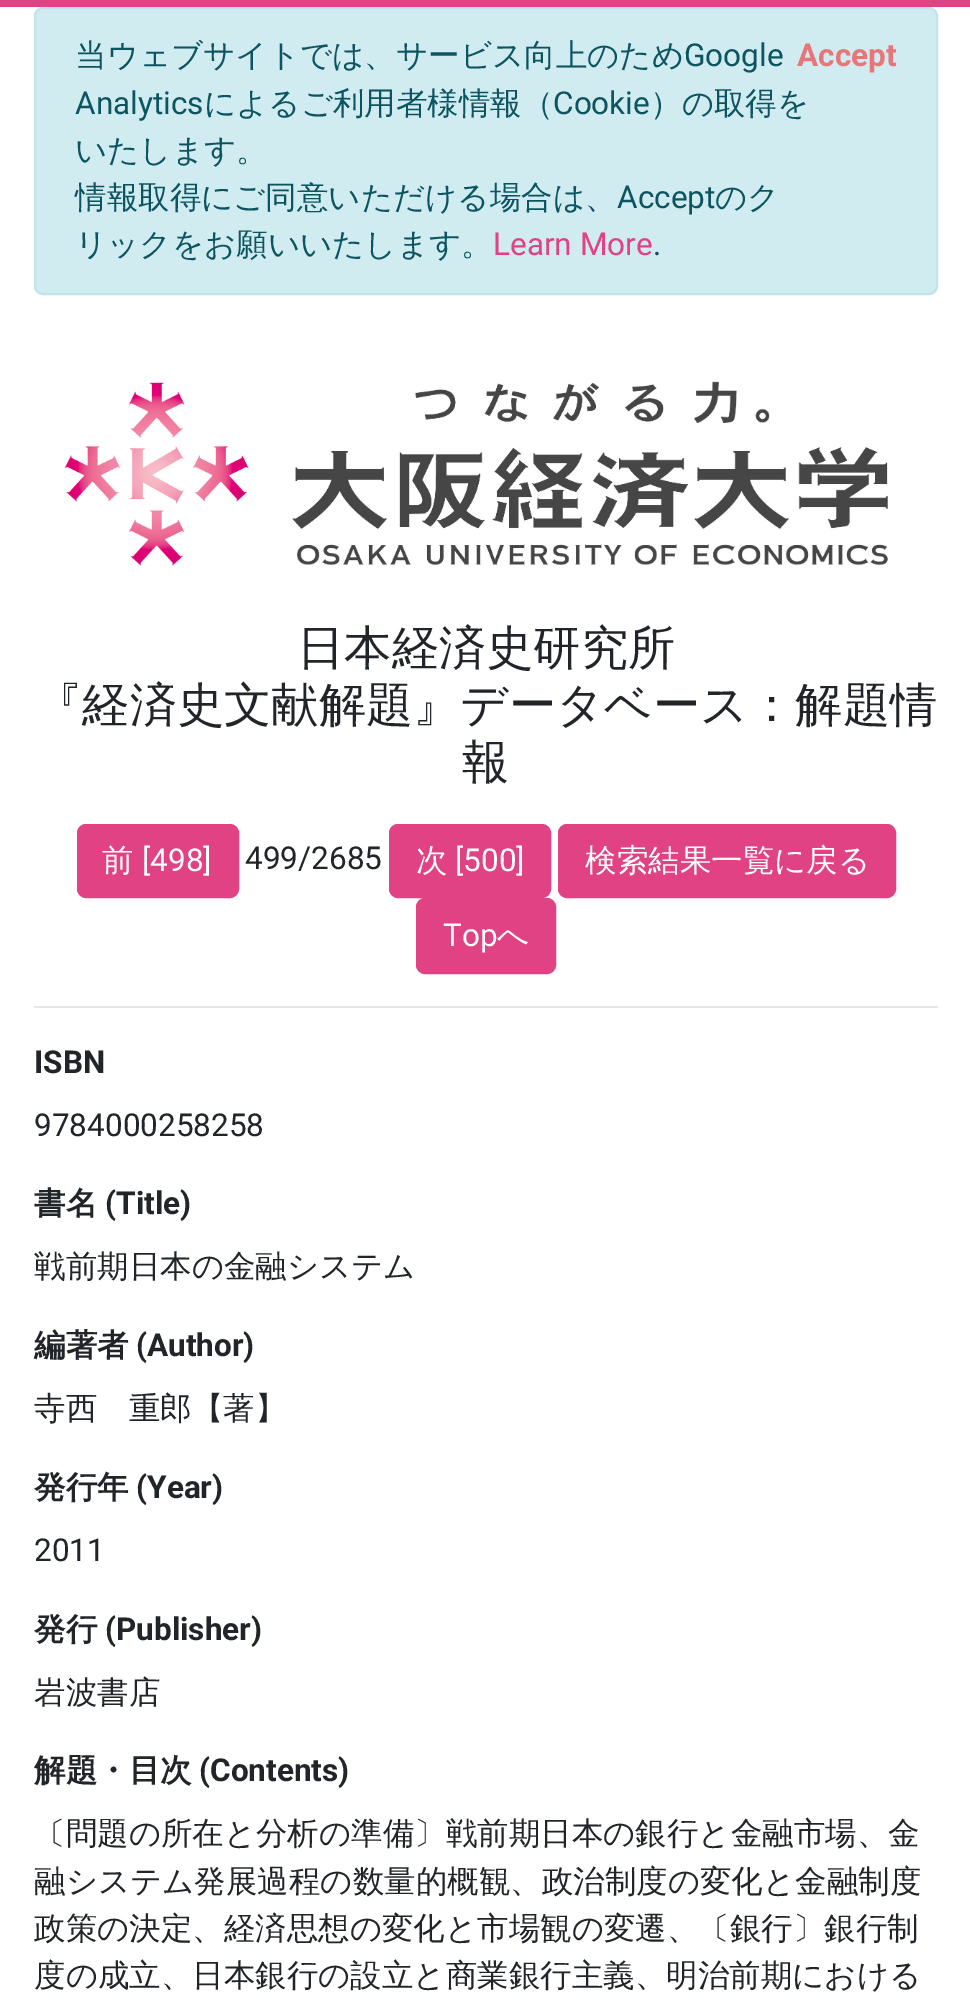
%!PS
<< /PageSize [970 2002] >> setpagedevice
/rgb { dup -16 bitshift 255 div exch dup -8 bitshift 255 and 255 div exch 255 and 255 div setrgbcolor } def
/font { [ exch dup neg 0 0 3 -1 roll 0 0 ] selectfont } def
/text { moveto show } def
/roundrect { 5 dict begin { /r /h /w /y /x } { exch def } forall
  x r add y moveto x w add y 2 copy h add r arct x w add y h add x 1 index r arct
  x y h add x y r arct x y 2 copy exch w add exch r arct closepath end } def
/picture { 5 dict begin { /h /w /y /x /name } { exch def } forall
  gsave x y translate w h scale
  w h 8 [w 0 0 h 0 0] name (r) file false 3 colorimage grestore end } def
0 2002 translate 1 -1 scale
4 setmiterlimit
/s1 { /WenQuanYiZenHei-Medium 31.5 font 16#0C5460 rgb } def
/s2 { /Roboto-Regular 31.5 font 16#0C5460 rgb } def
/s3 { /Roboto-Bold 31.5 font 16#E87679 rgb } def
/s4 { /Roboto-Regular 31.5 font 16#E04283 rgb } def
/s5 { /WenQuanYiZenHei-Medium 47.25 font 16#212529 rgb } def
/s6 { /WenQuanYiZenHei-Medium 31.5 font 16#FFFFFF rgb } def
/s7 { /Roboto-Regular 31.5 font 16#FFFFFF rgb } def
/s8 { /Roboto-Regular 31.5 font 16#212529 rgb } def
/s9 { /Roboto-Bold 31.5 font 16#212529 rgb } def
/s10 { /WenQuanYiZenHei-Bold 31.5 font 16#212529 rgb } def
/s11 { /WenQuanYiZenHei-Medium 31.5 font 16#212529 rgb } def
16#FFFFFF rgb
0 0 970 2002 rectfill
16#E04283 rgb
0 0 970 7 rectfill
16#D1ECF1 rgb
35 8 902 286 8 roundrect gsave fill grestore
16#BEE5EB rgb
2 setlinewidth
stroke
s1
(当ウェブサイトでは、サービス向上のため) 75 66 text
s2
(Google) 684 66 text
s3
(Accept) 797 66 text
s2
(Analytics) 75 114 text
s1
(によるご利用者様情報（) 204 114 text
s2
(Cookie) 553 114 text
s1
(）の取得を) 650 114 text
(いたします。) 75 161 text
(情報取得にご同意いただける場合は、) 75 208 text
s2
(Accept) 617 208 text
s1
(のク) 715 208 text
(リックをお願いいたします。) 75 255 text
s4
(Learn More) 493 255 text
s2
(.) 653 255 text
(pic1.raw) 64 381 824 186 picture
s5
(日本経済史研究所) 297 664 text
(『経済史文献解題』データベース：解題情) 35 721 text
(報) 462 778 text
16#E04283 rgb
78 825 160 72 8 roundrect gsave fill grestore
stroke
s6
(前) 102 871 text
s7
([498]) 142 871 text
s8
(499/2685) 245 869 text
16#E04283 rgb
390 825 160 72 8 roundrect gsave fill grestore
stroke
s6
(次) 416 871 text
s7
([500]) 455 871 text
16#E04283 rgb
559 825 336 72 8 roundrect gsave fill grestore
stroke
s6
(検索結果一覧に戻る) 585 871 text
16#E04283 rgb
417 899 138 74 8 roundrect gsave fill grestore
stroke
s7
(Top) 443 946 text
s6
(へ) 497 946 text
16#E6E6E6 rgb
34 1006 904 2 rectfill
s9
(ISBN) 34 1073 text
s8
(9784000258258) 34 1136 text
s10
(書名) 34 1214 text
s9
(\(Title\)) 105 1214 text
s11
(戦前期日本の金融システム) 34 1277 text
s10
(編著者) 34 1356 text
s9
(\(Author\)) 136 1356 text
s11
(寺西　重郎【著】) 34 1419 text
s10
(発行年) 34 1498 text
s9
(\(Year\)) 136 1498 text
s8
(2011) 34 1561 text
s10
(発行) 34 1640 text
s9
(\(Publisher\)) 105 1640 text
s11
(岩波書店) 34 1703 text
s10
(解題・目次) 34 1781 text
s9
(\(Contents\)) 199 1781 text
s11
(〔問題の所在と分析の準備〕戦前期日本の銀行と金融市場、金) 34 1844 text
(融システム発展過程の数量的概観、政治制度の変化と金融制度) 34 1892 text
(政策の決定、経済思想の変化と市場観の変遷、〔銀行〕銀行制) 34 1939 text
(度の成立、日本銀行の設立と商業銀行主義、明治前期における) 34 1986 text
showpage
